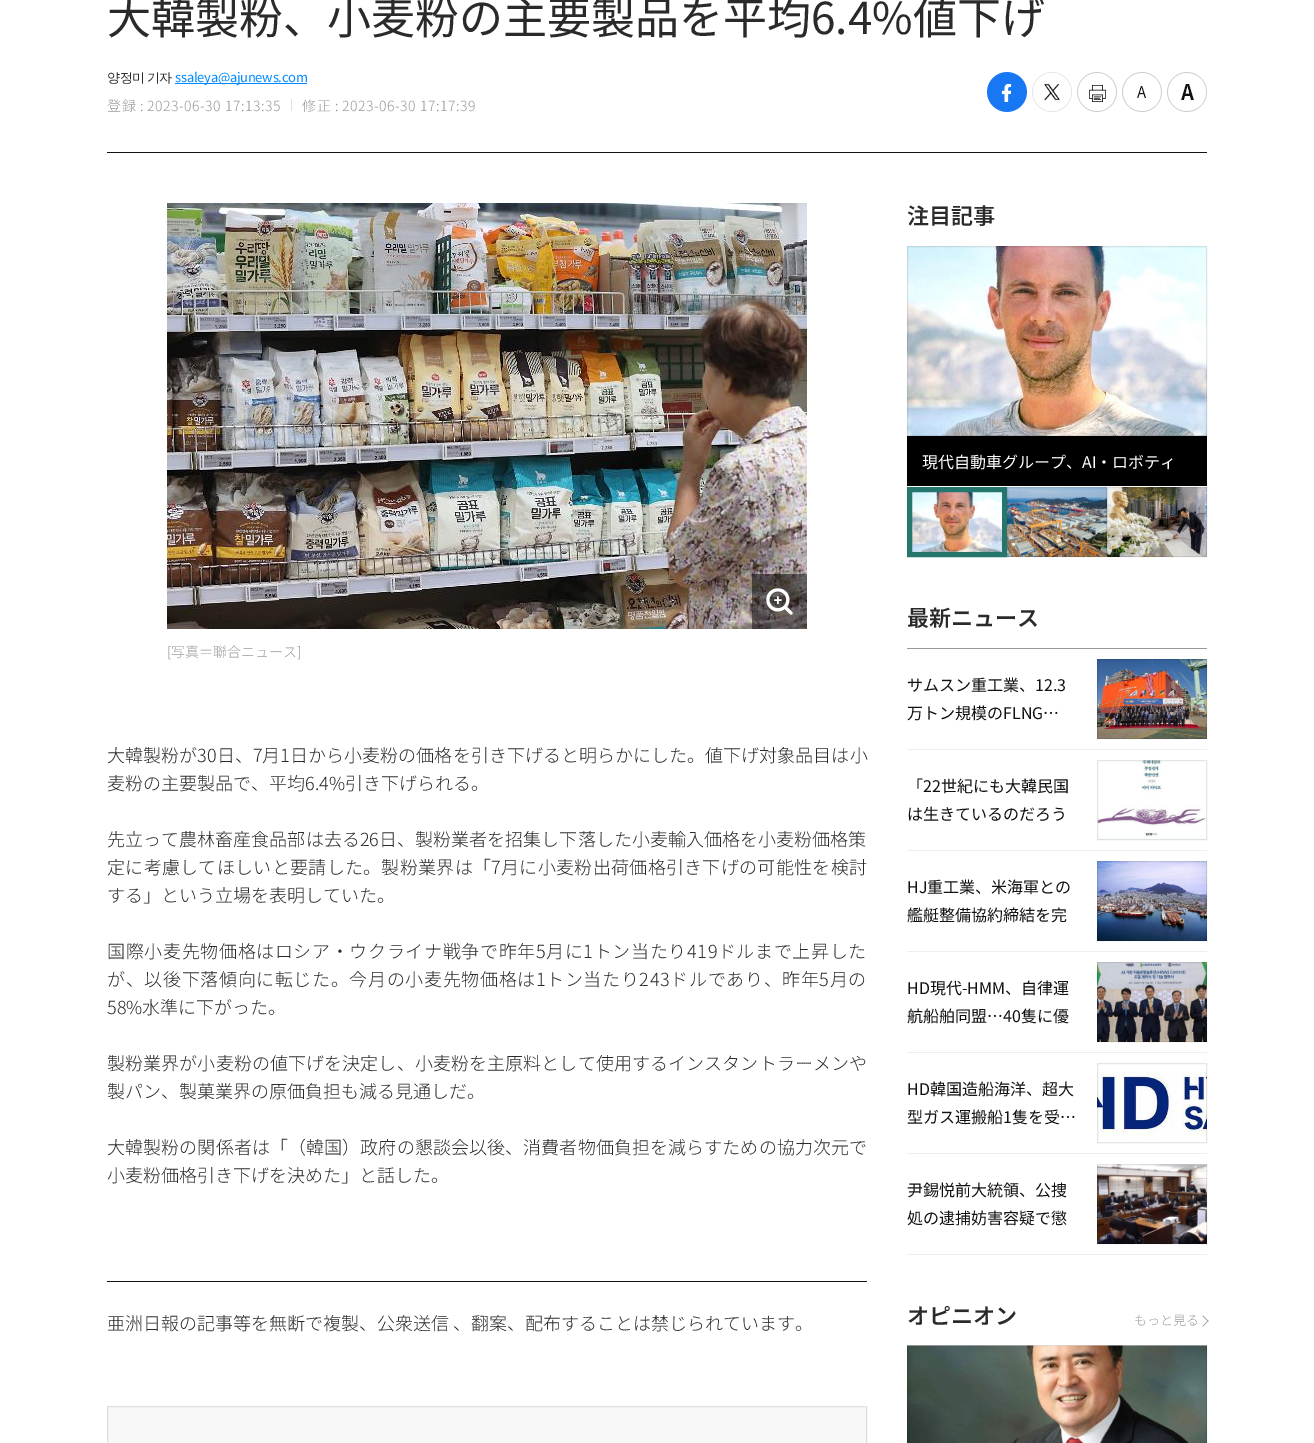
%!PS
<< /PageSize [1314 1443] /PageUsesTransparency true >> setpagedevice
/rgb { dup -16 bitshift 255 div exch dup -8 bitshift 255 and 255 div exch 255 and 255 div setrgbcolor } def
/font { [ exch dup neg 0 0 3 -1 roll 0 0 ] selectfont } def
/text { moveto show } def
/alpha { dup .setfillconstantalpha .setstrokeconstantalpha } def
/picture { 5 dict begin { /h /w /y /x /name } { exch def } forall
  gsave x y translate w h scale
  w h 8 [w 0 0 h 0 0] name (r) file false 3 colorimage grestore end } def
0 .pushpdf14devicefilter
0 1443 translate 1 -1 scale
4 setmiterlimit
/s1 { /NotoSansJP-Regular 44 font 16#2A2A2A rgb } def
/s2 { /NotoSansJP-Light 14 font 16#999999 rgb } def
/s3 { /NotoSansJP-Light 18 font 16#2A2A2A rgb } def
/s4 { /NotoSansJP-SemiBold 22 font 16#2A2A2A rgb } def
/s5 { /NotoSansJP-Regular 16 font 16#FFFFFF rgb } def
/s6 { /NotoSansJP-Regular 16 font 16#111111 rgb } def
/s7 { /NotoSansJP-Light 13 font 16#999999 rgb } def
16#FFFFFF rgb
0 0 1314 1443 rectfill
16#111111 rgb
107 152 1100 1 rectfill
s1
(大韓製粉、小麦粉の主要製品を平均6.4%値下げ) 107 34 text
/WenQuanYiZenHei-Medium 13 font
107 82 moveto -1 0 32 -0.5 0 (양정미 기자) awidthshow
16#008AFF rgb
175 83 132 1 rectfill
/NotoSansJP-Regular 13 font
175 82 moveto -0.25 0 (ssaleya@ajunews.com) ashow
/NotoSansJP-Light 14 font
16#999999 rgb
107 111 moveto 0.5 0 (登録 : 2023-06-30 17:13:35) ashow
16#E0E0E0 rgb
291 99 1 12 rectfill
16#999999 rgb
302 111 moveto 0.5 0 (修正 : 2023-06-30 17:17:39) ashow
(pic1.raw) 987 72 40 40 picture
(pic2.raw) 1032 72 40 40 picture
(pic3.raw) 1077 72 40 40 picture
(pic4.raw) 1122 72 40 40 picture
(pic5.raw) 1167 72 40 40 picture
(pic6.raw) 167 203 640 426 picture
(pic7.raw) 752 574 55 55 picture
([写真＝聯合ニュース]) 167 657 text
/NotoSansJP-Light 18 font
16#2A2A2A rgb
107 762 moveto 0.05 0 (大韓製粉が30日、7月1日から小麦粉の価格を引き下げると明らかにした。値下げ対象品目は小) ashow
(麦粉の主要製品で、平均6.4%引き下げられる。) 107 790 text
107 846 moveto 0.05 0 (先立って農林畜産食品部は去る26日、製粉業者を招集し下落した小麦輸入価格を小麦粉価格策) ashow
107 874 moveto 0.3 0 (定に考慮してほしいと要請した。製粉業界は「7月に小麦粉出荷価格引き下げの可能性を検討) ashow
(する」という立場を表明していた。) 107 902 text
107 958 moveto 0.65 0 (国際小麦先物価格はロシア・ウクライナ戦争で昨年5月に1トン当たり419ドルまで上昇した) ashow
107 986 moveto 0.65 0 (が、以後下落傾向に転じた。今月の小麦先物価格は1トン当たり243ドルであり、昨年5月の) ashow
(58%水準に下がった。) 107 1014 text
107 1070 moveto 0.1 0 (製粉業界が小麦粉の値下げを決定し、小麦粉を主原料として使用するインスタントラーメンや) ashow
(製パン、製菓業界の原価負担も減る見通しだ。) 107 1098 text
107 1154 moveto 0.1 0 (大韓製粉の関係者は「（韓国）政府の懇談会以後、消費者物価負担を減らすための協力次元で) ashow
(小麦粉価格引き下げを決めた」と話した。) 107 1182 text
16#111111 rgb
107 1281 760 1 rectfill
s3
(亜洲日報の記事等を無断で複製、公衆送信 、翻案、配布することは禁じられています。) 107 1330 text
16#F8F8F8 rgb
107.5 1406.5 moveto 866.5 1406.5 lineto 866.5 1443.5 lineto 107.5 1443.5 lineto closepath gsave fill grestore
16#DFDFDF rgb
stroke
s4
(注目記事) 907 224 text
(pic8.raw) 907 246 300 190 picture
0.1 alpha
16#000000 rgb
907.5 246.5 299 189 rectstroke
1 alpha
907 436 300 50 rectfill
s5
(現代自動車グループ、AI・ロボティ) 922 468 text
(pic9.raw) 912 492 90 60 picture
16#25776E rgb
5 setlinewidth
909.5 489.5 95 65 rectstroke
(pic10.raw) 1007 487 100 70 picture
0.1 alpha
16#000000 rgb
1 setlinewidth
1007.5 487.5 99 69 rectstroke
1 alpha
(pic11.raw) 1107 487 100 70 picture
0.1 alpha
1107.5 487.5 99 69 rectstroke
1 alpha
16#999999 rgb
907 648 300 1 rectfill
s4
(最新ニュース) 907 626 text
16#EEEEEE rgb
907 749 300 1 rectfill
s6
(サムスン重工業、12.3) 907 691 text
(万トン規模のFLNG…) 907 719 text
(pic12.raw) 1097 659 110 80 picture
0.1 alpha
16#000000 rgb
1097.5 659.5 109 79 rectstroke
1 alpha
16#EEEEEE rgb
907 850 300 1 rectfill
s6
(「22世紀にも大韓民国) 907 792 text
(は生きているのだろう) 907 820 text
(pic13.raw) 1097 760 110 80 picture
0.1 alpha
16#000000 rgb
1097.5 760.5 109 79 rectstroke
1 alpha
16#EEEEEE rgb
907 951 300 1 rectfill
s6
(HJ重工業、米海軍との) 907 893 text
(艦艇整備協約締結を完) 907 921 text
(pic14.raw) 1097 861 110 80 picture
0.1 alpha
16#000000 rgb
1097.5 861.5 109 79 rectstroke
1 alpha
16#EEEEEE rgb
907 1052 300 1 rectfill
s6
(HD現代-HMM、自律運) 907 994 text
(航船舶同盟…40隻に優) 907 1022 text
(pic15.raw) 1097 962 110 80 picture
0.1 alpha
16#000000 rgb
1097.5 962.5 109 79 rectstroke
1 alpha
16#EEEEEE rgb
907 1153 300 1 rectfill
s6
(HD韓国造船海洋、超大) 907 1095 text
(型ガス運搬船1隻を受…) 907 1123 text
(pic16.raw) 1097 1072 110 65 picture
0.1 alpha
16#000000 rgb
1097.5 1063.5 109 79 rectstroke
1 alpha
16#EEEEEE rgb
907 1254 300 1 rectfill
s6
(尹錫悦前大統領、公捜) 907 1196 text
(処の逮捕妨害容疑で懲) 907 1224 text
(pic17.raw) 1097 1164 110 80 picture
0.1 alpha
16#000000 rgb
1097.5 1164.5 109 79 rectstroke
1 alpha
s4
(オピニオン) 907 1324 text
s7
(もっと見る) 1134 1325 text
1202.5 1316 moveto 1203 1315.5 lineto 1208.5 1321 lineto 1208 1321.5 lineto closepath fill
1202.5 1326 moveto 1208 1320.5 lineto 1208.5 1321 lineto 1203 1326.5 lineto closepath fill
(pic18.raw) 907 1345 300 98 picture
0.1 alpha
16#000000 rgb
907.5 1345.5 299 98 rectstroke
.poppdf14devicefilter showpage
